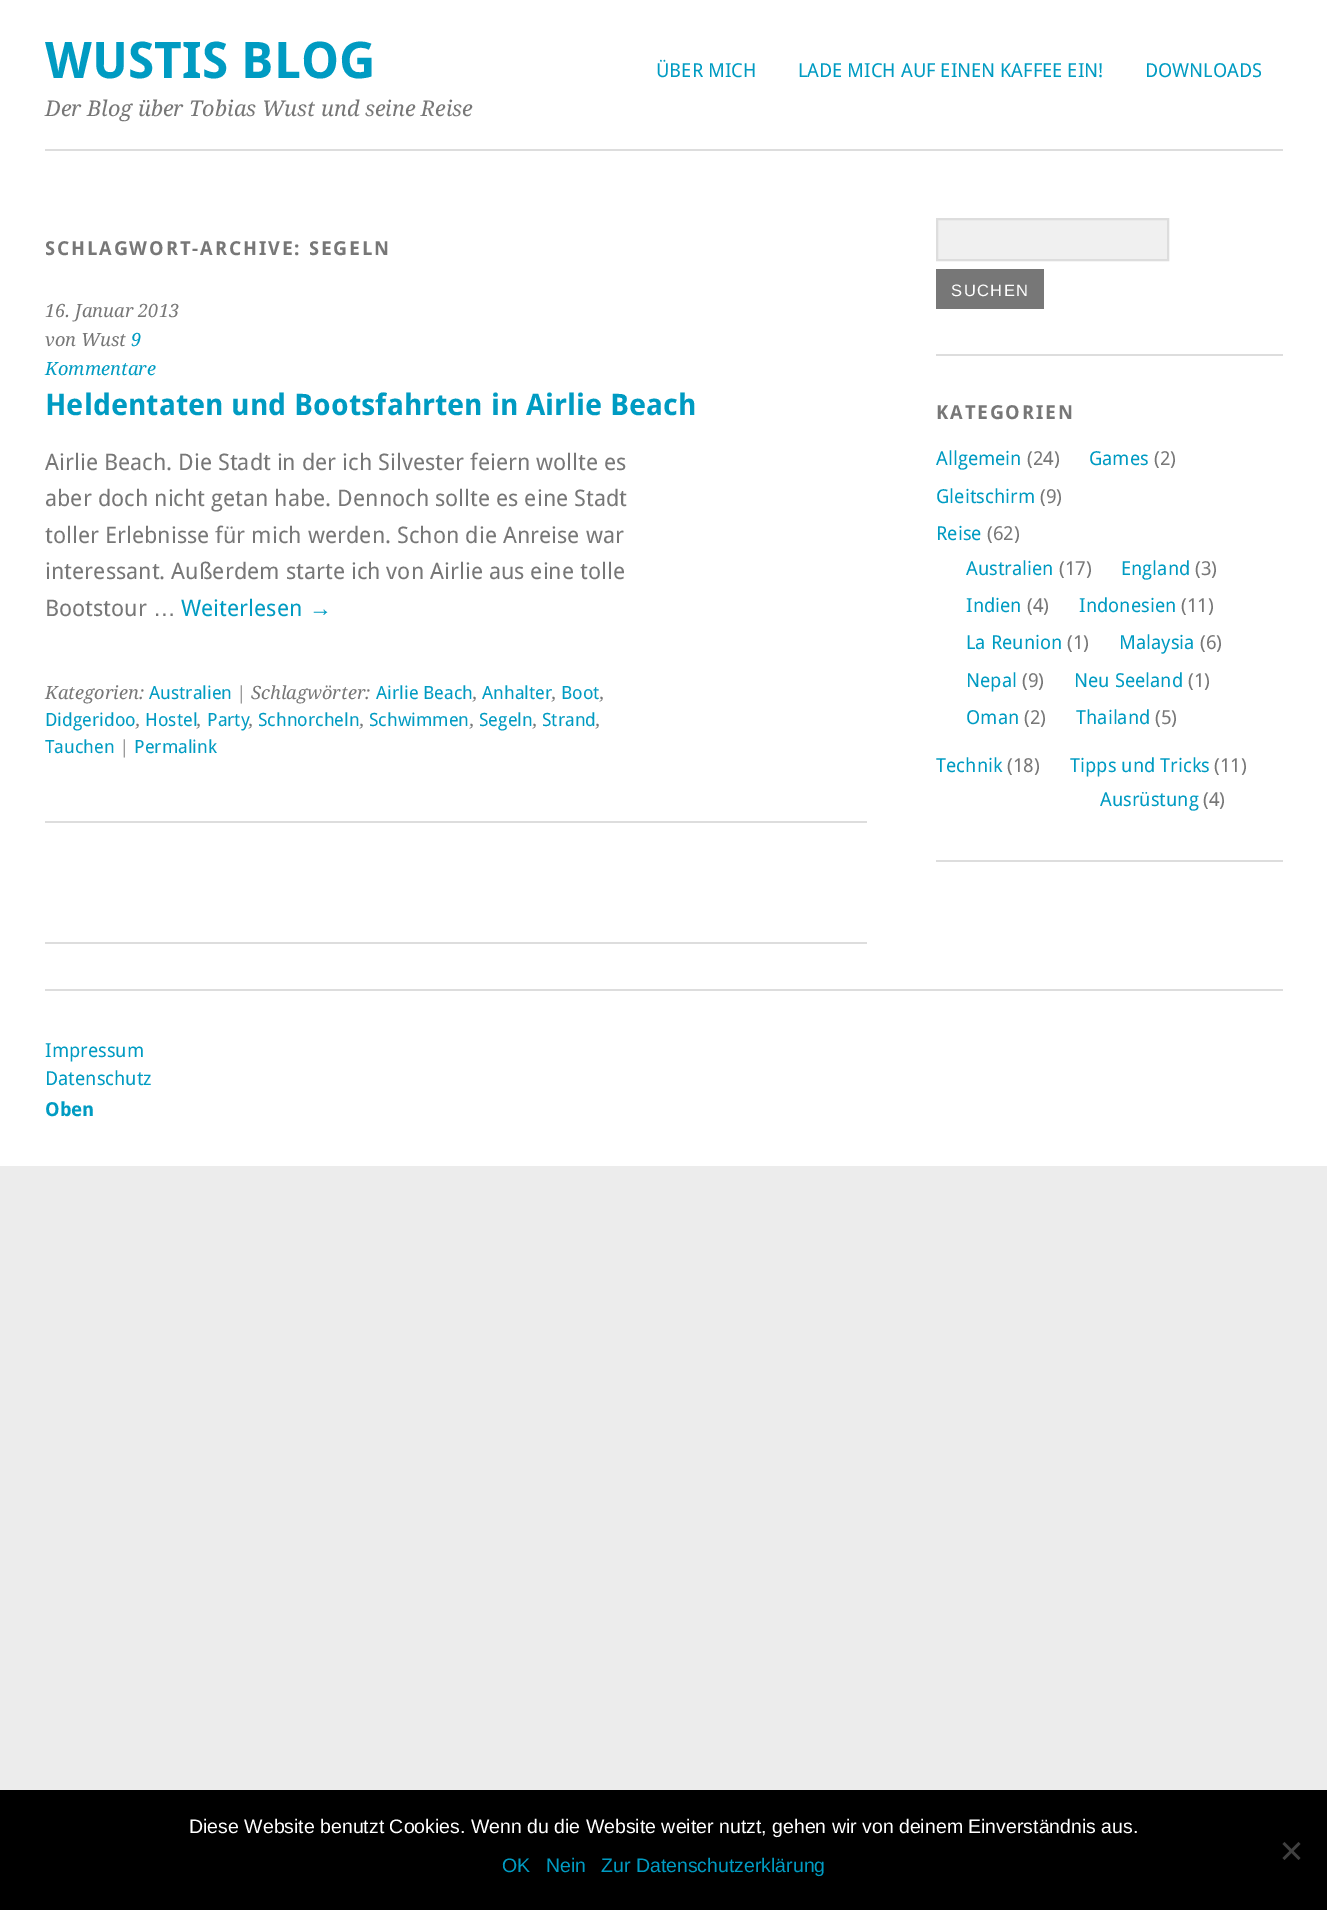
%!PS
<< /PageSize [1327 1910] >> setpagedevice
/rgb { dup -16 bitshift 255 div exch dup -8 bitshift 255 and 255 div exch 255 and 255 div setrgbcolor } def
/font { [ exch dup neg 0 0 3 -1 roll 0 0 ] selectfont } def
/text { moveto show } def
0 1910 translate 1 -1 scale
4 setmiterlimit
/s1 { /DroidSans-Bold 50.5 font 16#009BC2 rgb } def
/s2 { /DroidSerif-Italic 21.6 font 16#777777 rgb } def
/s3 { /DroidSans-Regular 19.25 font 16#009BC2 rgb } def
/s4 { /DroidSerif-Italic 18.25 font 16#777777 rgb } def
/s5 { /DroidSerif-Italic 18.25 font 16#009BC2 rgb } def
/s6 { /DroidSans-Bold 29.6 font 16#009BC2 rgb } def
/s7 { /DroidSans-Regular 22.8 font 16#777777 rgb } def
/s8 { /LiberationSans-Regular 22.8 font 16#777777 rgb } def
/s9 { /DroidSans-Regular 22.8 font 16#009BC2 rgb } def
/s10 { /LiberationSans-Regular 22.8 font 16#009BC2 rgb } def
/s11 { /DroidSans-Regular 18.25 font 16#009BC2 rgb } def
/s12 { /DroidSans-Regular 19.25 font 16#777777 rgb } def
/s13 { /DroidSans-Bold 19.25 font 16#009BC2 rgb } def
/s14 { /LiberationSans-Regular 19.5 font 16#FFFFFF rgb } def
/s15 { /LiberationSans-Regular 19.5 font 16#009BC2 rgb } def
16#ECECEC rgb
0 0 1327 1910 rectfill
16#FFFFFF rgb
0 0 1327 1166 rectfill
s1
(WUSTIS BLOG) 45 78 text
s2
(Der Blog über Tobias Wust und seine Reise) 45 116 text
s3
(ÜBER MICH) 656 77 text
(LADE MICH AUF EINEN KAFFEE EIN!) 798 77 text
(DOWNLOADS) 1145 77 text
16#DDDDDD rgb
45 149 1238 2 rectfill
45 989 1238 2 rectfill
/DroidSans-Bold 19.25 font
16#777777 rgb
45 255 moveto 1.9 0 (SCHLAGWORT-ARCHIVE: SEGELN) ashow
16#DDDDDD rgb
45 821 822 2 rectfill
s4
(16. Januar 2013) 45 317 text
(von Wust) 45 346 text
s5
(9) 131 346 text
(Kommentare) 45 375 text
s6
(Heldentaten und Bootsfahrten in Airlie Beach) 45 415 text
s7
(Airlie Beach. Die Stadt in der ich Silvester feiern wollte es) 45 470 text
(aber doch nicht getan habe. Dennoch sollte es eine Stadt) 45 506 text
(toller Erlebnisse für mich werden. Schon die Anreise war) 45 543 text
(interessant. Außerdem starte ich von Airlie aus eine tolle) 45 579 text
(Bootstour) 45 616 text
s8
(…) 153 616 text
s9
(Weiterlesen) 181 616 text
s10
(→) 309 616 text
s4
(Kategorien:) 45 699 text
s11
(Australien) 149 699 text
s4
(| Schlagwörter:) 236 699 text
s11
(Airlie Beach) 376 699 text
s4
(,) 473 699 text
s11
(Anhalter) 482 699 text
s4
(,) 552 699 text
s11
(Boot) 561 699 text
s4
(,) 600 699 text
s11
(Didgeridoo) 45 726 text
s4
(,) 136 726 text
s11
(Hostel) 145 726 text
s4
(,) 197 726 text
s11
(Party) 207 726 text
(Schnorcheln) 258 726 text
(Schwimmen) 369 726 text
(Segeln) 479 726 text
(Strand) 542 726 text
s4
(,) 249 726 text
(,) 360 726 text
(,) 470 726 text
(,) 533 726 text
(,) 596 726 text
s11
(Tauchen) 45 753 text
s4
(|) 119 753 text
s11
(Permalink) 134 753 text
16#DDDDDD rgb
45 942 822 2 rectfill
936 354 347 2 rectfill
16#F0F0F0 rgb
937 219 moveto 1168 219 lineto 1168 260 lineto 937 260 lineto closepath gsave fill grestore
16#DDDDDD rgb
2 setlinewidth
stroke
16#777777 rgb
936 269 108 40 rectfill
/LiberationSans-Regular 16.5 font
16#FFFFFF rgb
951 296 moveto 1.5 0 (SUCHEN) ashow
16#DDDDDD rgb
936 860 347 2 rectfill
/DroidSans-Bold 19.25 font
16#777777 rgb
936 419 moveto 1.9 0 (KATEGORIEN) ashow
s3
(Allgemein) 936 465 text
s12
(\(24\)) 1027 465 text
s3
(Games) 1089 465 text
s12
(\(2\)) 1154 465 text
s3
(Gleitschirm) 936 503 text
s12
(\(9\)) 1040 503 text
s3
(Reise) 936 540 text
s12
(\(62\)) 987 540 text
s3
(Australien) 966 575 text
s12
(\(17\)) 1059 575 text
s3
(England) 1121 575 text
s12
(\(3\)) 1195 575 text
s3
(Indien) 966 612 text
s12
(\(4\)) 1027 612 text
s3
(Indonesien) 1079 612 text
s12
(\(11\)) 1181 612 text
s3
(La Reunion) 966 649 text
s12
(\(1\)) 1067 649 text
s3
(Malaysia) 1119 649 text
s12
(\(6\)) 1200 649 text
s3
(Nepal) 966 687 text
s12
(\(9\)) 1022 687 text
s3
(Neu Seeland) 1074 687 text
s12
(\(1\)) 1188 687 text
s3
(Oman) 966 724 text
s12
(\(2\)) 1024 724 text
s3
(Thailand) 1076 724 text
s12
(\(5\)) 1155 724 text
s3
(Technik) 936 772 text
s12
(\(18\)) 1007 772 text
s3
(Tipps und Tricks) 1070 772 text
s12
(\(11\)) 1214 772 text
s3
(Ausrüstung) 1100 806 text
s12
(\(4\)) 1203 806 text
s3
(Impressum) 45 1057 text
(Datenschutz) 45 1085 text
s13
(Oben) 45 1116 text
16#000000 rgb
0 1790 1327 120 rectfill
s14
(Diese Website benutzt Cookies. Wenn du die Website weiter nutzt, gehen wir von deinem Einverständnis aus.) 189 1833 text
16#404040 rgb
1298.5 1842 moveto 1300.5 1844 lineto 1284.5 1860 lineto 1282.5 1858 lineto closepath fill
1282.5 1844 moveto 1284.5 1842 lineto 1300.5 1858 lineto 1298.5 1860 lineto closepath fill
s15
(OK) 502 1872 text
(Nein) 546 1872 text
(Zur Datenschutzerklärung) 601 1872 text
showpage
